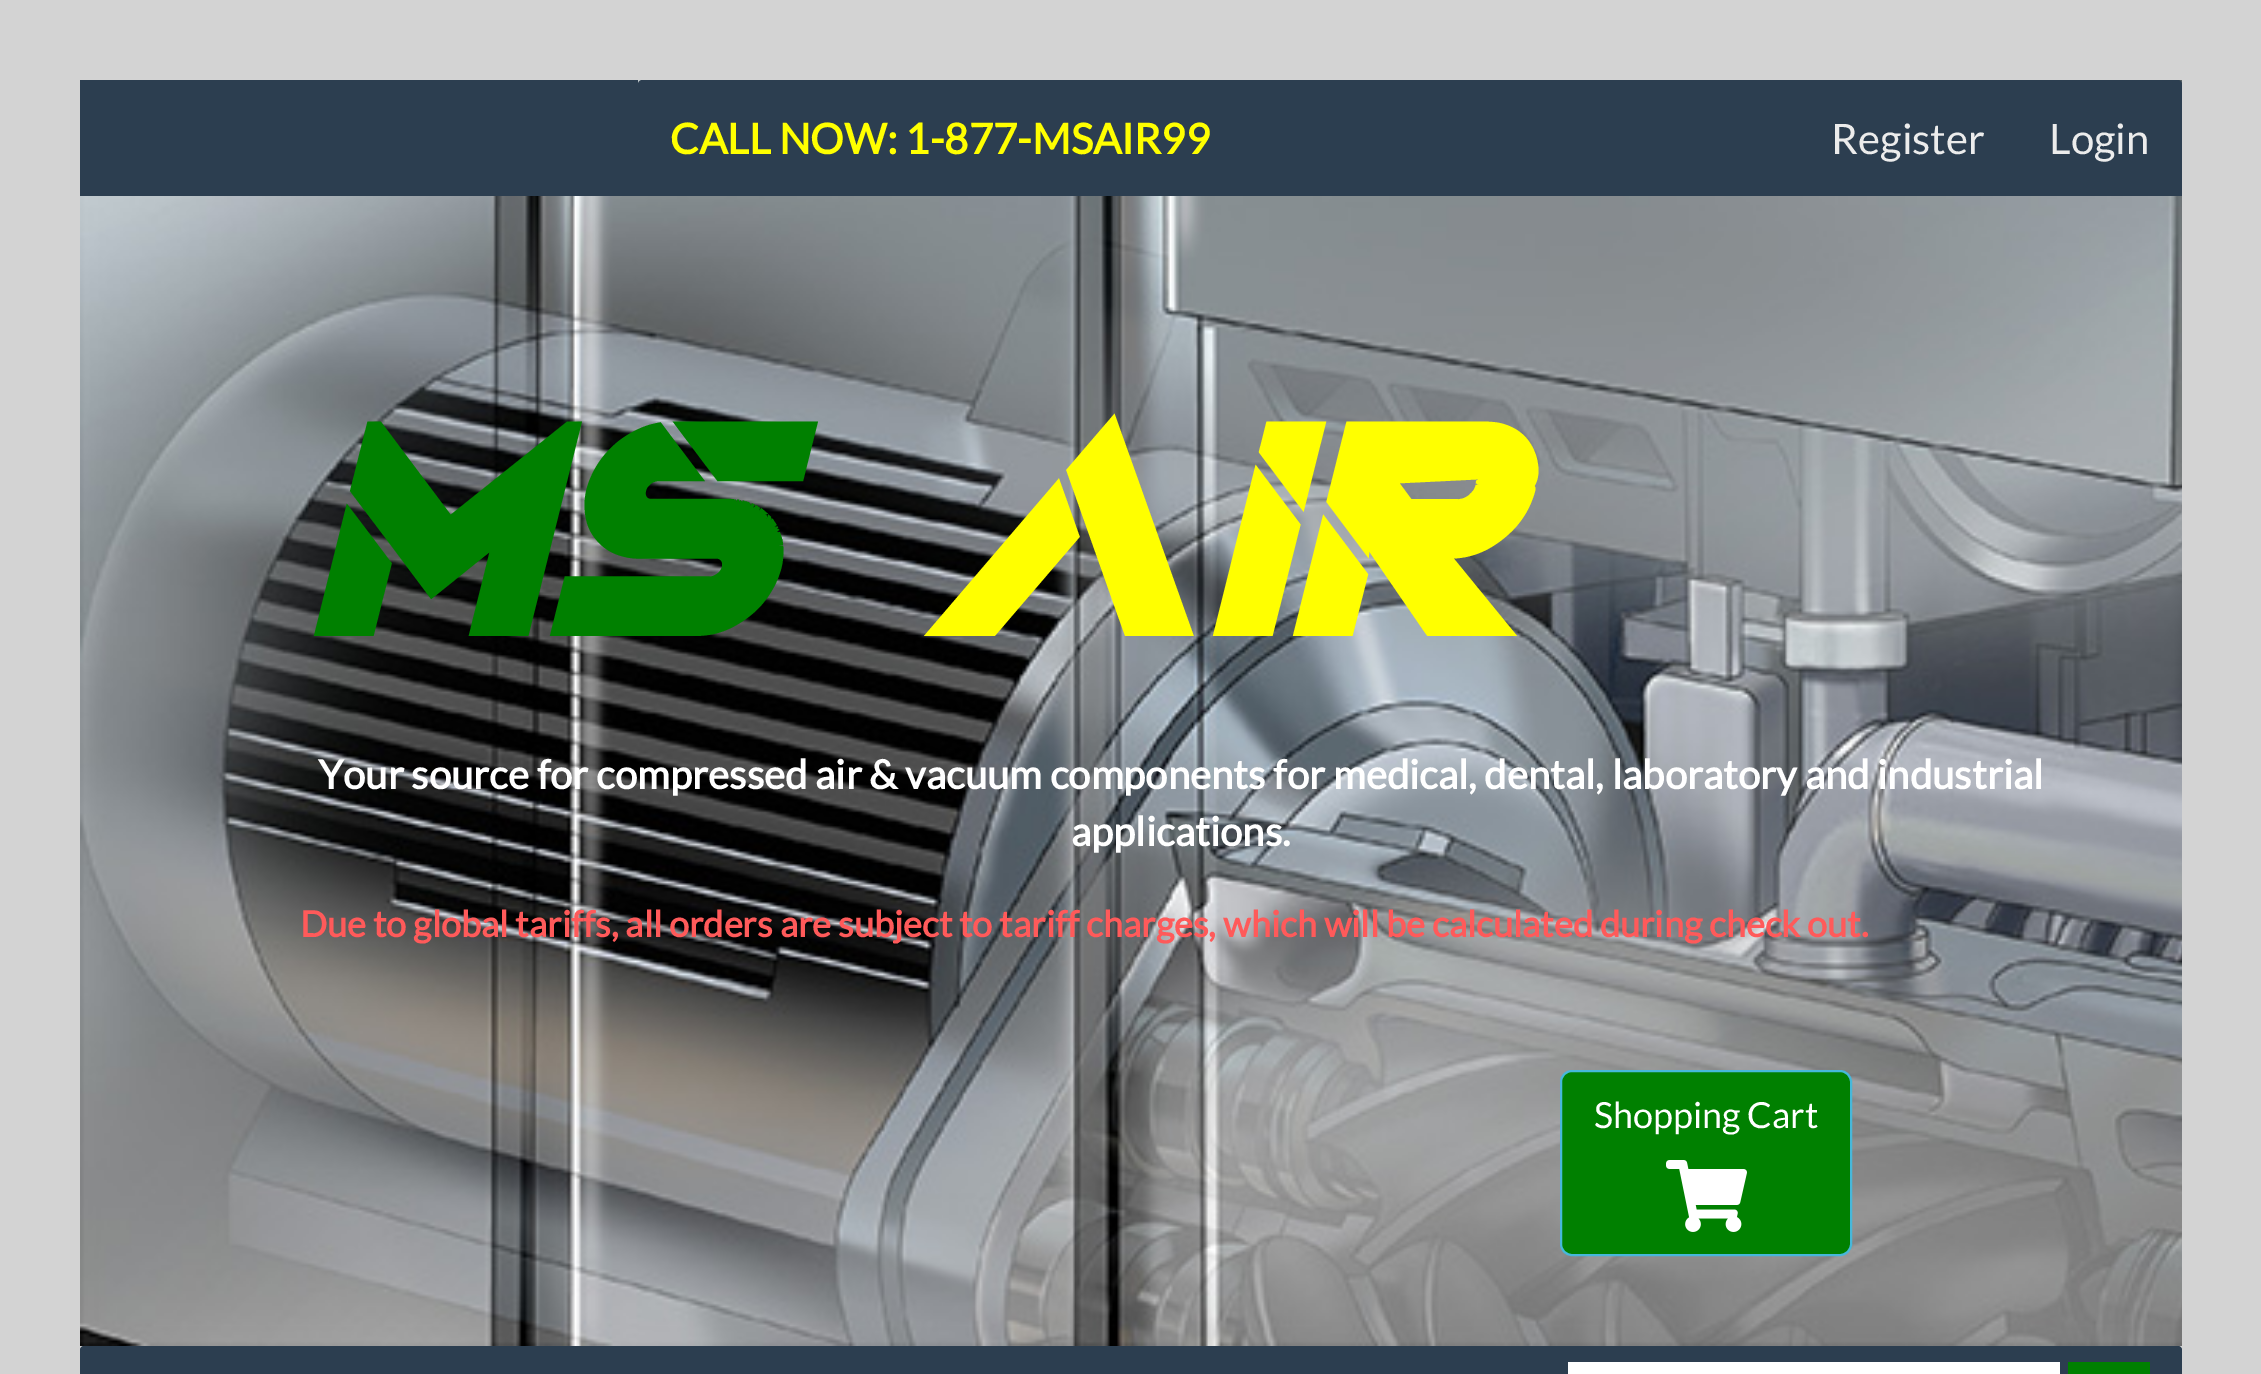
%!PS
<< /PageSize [2261 1374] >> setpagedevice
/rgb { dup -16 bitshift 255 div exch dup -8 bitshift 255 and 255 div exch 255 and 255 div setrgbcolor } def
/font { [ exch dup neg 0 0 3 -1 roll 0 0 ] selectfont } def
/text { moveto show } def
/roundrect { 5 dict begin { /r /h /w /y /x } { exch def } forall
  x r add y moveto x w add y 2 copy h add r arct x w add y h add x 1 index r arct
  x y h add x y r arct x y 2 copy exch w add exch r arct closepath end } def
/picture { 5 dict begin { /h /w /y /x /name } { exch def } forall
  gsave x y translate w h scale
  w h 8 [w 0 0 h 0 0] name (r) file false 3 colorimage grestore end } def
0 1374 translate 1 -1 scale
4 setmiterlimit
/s1 { /Lato-Bold 42 font 16#FFFF00 rgb } def
/s2 { /Lato-Regular 42 font 16#ECECEC rgb } def
/s3 { /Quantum-BoldItalic 300 font 16#008000 rgb } def
/s4 { /Quantum-BoldItalic 300 font 16#FFFF00 rgb } def
/s5 { /Lato-Bold 40 font 16#FFFFFF rgb } def
/s6 { /Lato-Bold 36 font 16#FF5A5A rgb } def
/s7 { /Lato-Regular 36 font 16#FFFFFF rgb } def
16#D3D3D3 rgb
0 0 2261 1374 rectfill
(pic1.raw) 80 80 2102 1266 picture
16#2C3E50 rgb
80 80 moveto 2178 80 lineto 2180 80 2182 82 2182 84 curveto 2182 196 lineto 80 196 lineto closepath fill
(pic2.raw) 638 80 4 4 picture
642 80 moveto 1242 80 lineto 1242 196 lineto 638 196 lineto 638 84 lineto 638 82 640 80 642 80 curveto closepath fill
s1
(CALL NOW: 1-877-MSAIR99) 670 154 text
s2
(Register) 1831 154 text
(Login) 2049 154 text
s3
(MS) 300 636 text
s4
(AIR) 914 636 text
s5
(Your source for compressed air & vacuum components for medical, dental, laboratory and industrial) 318 789 text
(applications.) 1071 846 text
s6
(Due to global tariffs, all orders are subject to tariff charges, which will be calculated during check out.) 300 937 text
16#008000 rgb
1561 1071 290 184 11 roundrect gsave fill grestore
16#46B8DA rgb
2 setlinewidth
stroke
s7
(Shopping Cart) 1594 1128 text
(pic3.raw) 1666 1160 81 72 picture
16#2C3E50 rgb
80 1346 2102 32 4 roundrect fill
16#FFFFFF rgb
1568 1362 492 12 rectfill
16#008000 rgb
2068 1362 82 12 rectfill
showpage
